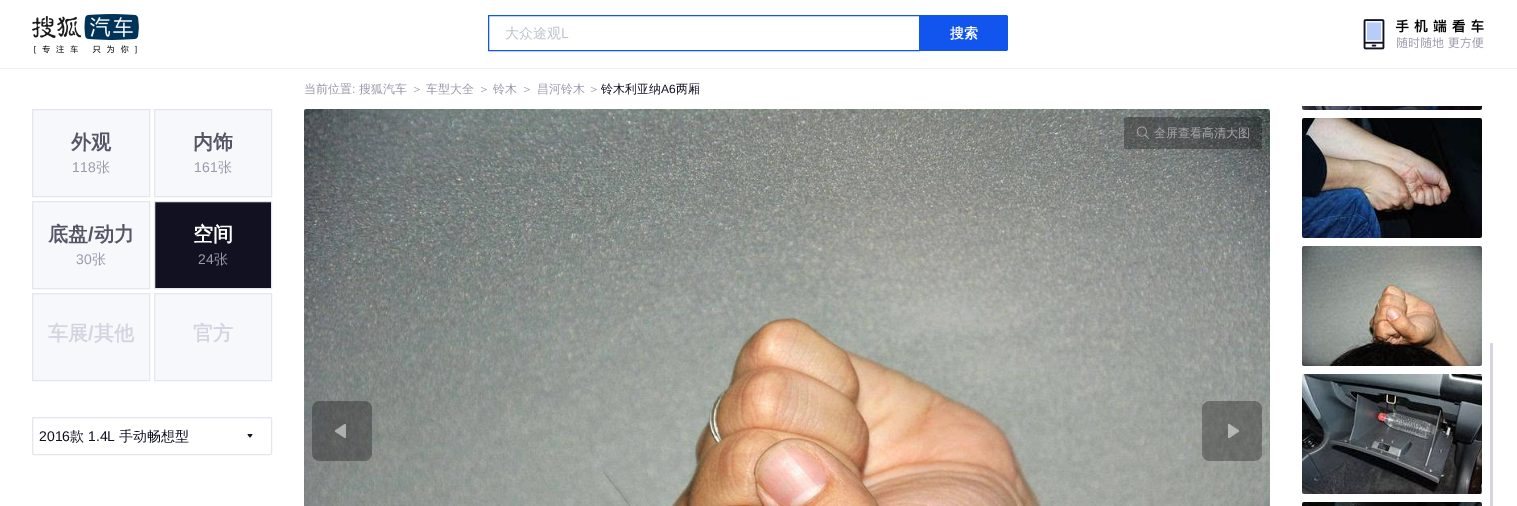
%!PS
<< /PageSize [1517 506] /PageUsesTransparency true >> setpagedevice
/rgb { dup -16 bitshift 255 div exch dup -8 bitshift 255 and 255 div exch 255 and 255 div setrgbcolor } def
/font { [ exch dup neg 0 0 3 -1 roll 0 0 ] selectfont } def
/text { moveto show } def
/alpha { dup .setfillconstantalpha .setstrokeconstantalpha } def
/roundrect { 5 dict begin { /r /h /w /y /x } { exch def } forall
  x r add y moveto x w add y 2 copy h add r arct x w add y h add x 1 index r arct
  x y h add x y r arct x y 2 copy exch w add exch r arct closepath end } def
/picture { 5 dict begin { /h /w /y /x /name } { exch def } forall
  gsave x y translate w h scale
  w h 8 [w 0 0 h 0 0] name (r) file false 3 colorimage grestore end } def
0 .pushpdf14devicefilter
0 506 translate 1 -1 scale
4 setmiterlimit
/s1 { /WenQuanYiZenHei-Medium 14 font 16#BBC2CC rgb } def
/s2 { /LiberationSans-Regular 14 font 16#BBC2CC rgb } def
/s3 { /WenQuanYiZenHei-Bold 14 font 16#FFFFFF rgb } def
/s4 { /WenQuanYiZenHei-Medium 12 font 16#9999AA rgb } def
/s5 { /LiberationSans-Regular 12 font 16#9999AA rgb } def
/s6 { /WenQuanYiZenHei-Medium 12 font 16#111122 rgb } def
/s7 { /LiberationSans-Regular 12 font 16#111122 rgb } def
/s8 { /WenQuanYiZenHei-Bold 20 font 16#555566 rgb } def
/s9 { /LiberationSans-Regular 14 font 16#9999AA rgb } def
/s10 { /WenQuanYiZenHei-Medium 14 font 16#9999AA rgb } def
/s11 { /LiberationSans-Bold 20 font 16#555566 rgb } def
/s12 { /WenQuanYiZenHei-Bold 20 font 16#FFFFFF rgb } def
/s13 { /WenQuanYiZenHei-Bold 20 font 16#D5D5E2 rgb } def
/s14 { /LiberationSans-Bold 20 font 16#D5D5E2 rgb } def
/s15 { /LiberationSans-Regular 14 font 16#111122 rgb } def
/s16 { /WenQuanYiZenHei-Medium 14 font 16#111122 rgb } def
/s17 { /WenQuanYiZenHei-Medium 12 font 16#A7A8A9 rgb } def
16#FFFFFF rgb
0 0 1517 506 rectfill
16#EEEEF0 rgb
0 68 1517 1 rectfill
(pic1.raw) 32 14 107 40 picture
16#1155EE rgb
488.5 15.5 431 35 rectstroke
s1
(大众途观) 505 38 text
s2
(L) 561 38 text
16#1155EE rgb
920 15 moveto 1006 15 lineto 1007 15 1008 16 1008 17 curveto 1008 49 lineto 1008 50 1007 51 1006 51 curveto 920 51 lineto closepath fill
s3
(搜索) 950 38 text
(pic2.raw) 1363 19 121 31 picture
s4
(当前位置) 304 93 text
s5
(:) 352 93 text
s4
(搜狐汽车 ＞ 车型大全 ＞ 铃木 ＞ 昌河铃木 ＞) 359 93 text
s6
(铃木利亚纳) 601 93 text
s7
(A6) 661 93 text
s6
(两厢) 676 93 text
16#F7F8FC rgb
32.5 109.5 moveto 149.5 109.5 lineto 149.5 196.5 lineto 32.5 196.5 lineto closepath gsave fill grestore
16#E5E5EE rgb
stroke
s8
(外观) 71 149 text
s9
(118) 72 172 text
s10
(张) 96 172 text
16#F7F8FC rgb
154.5 109.5 moveto 271.5 109.5 lineto 271.5 196.5 lineto 154.5 196.5 lineto closepath gsave fill grestore
16#E5E5EE rgb
stroke
s8
(内饰) 193 149 text
s9
(161) 194 172 text
s10
(张) 218 172 text
16#F7F8FC rgb
32.5 201.5 moveto 149.5 201.5 lineto 149.5 288.5 lineto 32.5 288.5 lineto closepath gsave fill grestore
16#E5E5EE rgb
stroke
s8
(底盘) 48 241 text
s11
(/) 88 241 text
s8
(动力) 94 241 text
s9
(30) 76 264 text
s10
(张) 92 264 text
16#111122 rgb
154.5 201.5 moveto 271.5 201.5 lineto 271.5 288.5 lineto 154.5 288.5 lineto closepath gsave fill grestore
16#E5E5EE rgb
stroke
s12
(空间) 193 241 text
s9
(24) 198 264 text
s10
(张) 214 264 text
16#F7F8FC rgb
32.5 293.5 moveto 149.5 293.5 lineto 149.5 380.5 lineto 32.5 380.5 lineto closepath gsave fill grestore
16#E5E5EE rgb
stroke
s13
(车展) 48 340 text
s14
(/) 88 340 text
s13
(其他) 94 340 text
16#F7F8FC rgb
154.5 293.5 moveto 271.5 293.5 lineto 271.5 380.5 lineto 154.5 380.5 lineto closepath gsave fill grestore
16#E5E5EE rgb
stroke
s13
(官方) 193 340 text
16#E5E5EE rgb
32.5 417.5 239 37 1.5 roundrect stroke
s15
(2016) 39 441 text
s16
(款) 70 441 text
s15
(1.4L) 88 441 text
s16
(手动畅想型) 119 441 text
(pic3.raw) 247 434 6 4 picture
(pic4.raw) 304 109 966 397 picture
0.3 alpha
16#000000 rgb
1124 117 138 32 2 roundrect fill
1 alpha
(pic5.raw) 1136 126 13 13 picture
s17
(全屏查看高清大图) 1154 137 text
0.3 alpha
16#000000 rgb
312 401 60 60 8 roundrect fill
1 alpha
(pic6.raw) 334 424 12 14 picture
0.3 alpha
1202 401 60 60 8 roundrect fill
1 alpha
(pic7.raw) 1228 424 12 14 picture
(pic8.raw) 1302 106 180 4 picture
(pic9.raw) 1302 118 180 120 picture
(pic10.raw) 1302 246 180 120 picture
(pic11.raw) 1302 374 180 120 picture
(pic12.raw) 1302 502 180 4 picture
16#D5D5E2 rgb
1490 343 3 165 1.5 roundrect fill
.poppdf14devicefilter showpage
